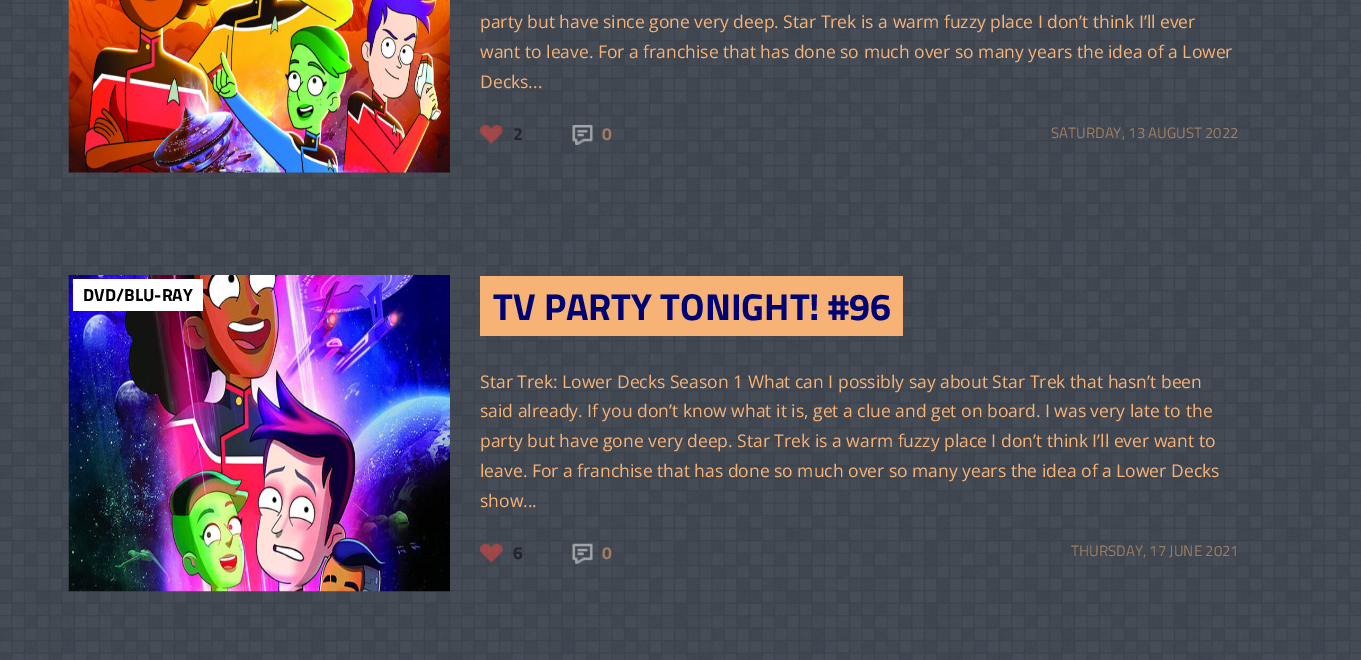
%!PS
<< /PageSize [1361 660] >> setpagedevice
/rgb { dup -16 bitshift 255 div exch dup -8 bitshift 255 and 255 div exch 255 and 255 div setrgbcolor } def
/font { [ exch dup neg 0 0 3 -1 roll 0 0 ] selectfont } def
/text { moveto show } def
/picture { 5 dict begin { /h /w /y /x /name } { exch def } forall
  gsave x y translate w h scale
  w h 8 [w 0 0 h 0 0] name (r) file false 3 colorimage grestore end } def
0 660 translate 1 -1 scale
4 setmiterlimit
/s1 { /OpenSans-Regular 17.5 font 16#F7B276 rgb } def
/s2 { /TitilliumWeb-Bold 17.5 font 16#22252A rgb } def
/s3 { /TitilliumWeb-Bold 17.5 font 16#9D7E65 rgb } def
/s4 { /TitilliumWeb-Regular 15 font 16#9D7E65 rgb } def
/s5 { /TitilliumWeb-Bold 17.5 font 16#000000 rgb } def
/s6 { /TitilliumWeb-Bold 37.5 font 16#000374 rgb } def
16#FFFFFF rgb
0 0 1361 660 rectfill
(pic1.raw) 0 0 1361 660 picture
(pic2.raw) 68 0 382 173 picture
s1
(party but have since gone very deep. Star Trek is a warm fuzzy place I don’t think I’ll ever) 480 28 text
(want to leave. For a franchise that has done so much over so many years the idea of a Lower) 480 58 text
(Decks...) 480 88 text
(pic3.raw) 480 125 23 19 picture
s2
(2) 513 140 text
(pic4.raw) 572 125 21 20 picture
s3
(0) 602 140 text
s4
(SATURDAY, 13 AUGUST 2022) 1051 138 text
(pic5.raw) 68 275 382 317 picture
16#FFFFFF rgb
73 279 130 32 rectfill
s5
(DVD/BLU-RAY) 83 301 text
16#F7B276 rgb
480 276 423 60 rectfill
s6
(TV PARTY TONIGHT! #96) 493 320 text
s1
(Star Trek: Lower Decks Season 1 What can I possibly say about Star Trek that hasn’t been) 480 388 text
(said already. If you don’t know what it is, get a clue and get on board. I was very late to the) 480 417 text
(party but have gone very deep. Star Trek is a warm fuzzy place I don’t think I’ll ever want to) 480 447 text
(leave. For a franchise that has done so much over so many years the idea of a Lower Decks) 480 477 text
(show...) 480 507 text
(pic6.raw) 480 543 23 20 picture
s2
(6) 513 559 text
(pic7.raw) 572 543 21 21 picture
s3
(0) 602 559 text
s4
(THURSDAY, 17 JUNE 2021) 1071 556 text
showpage
